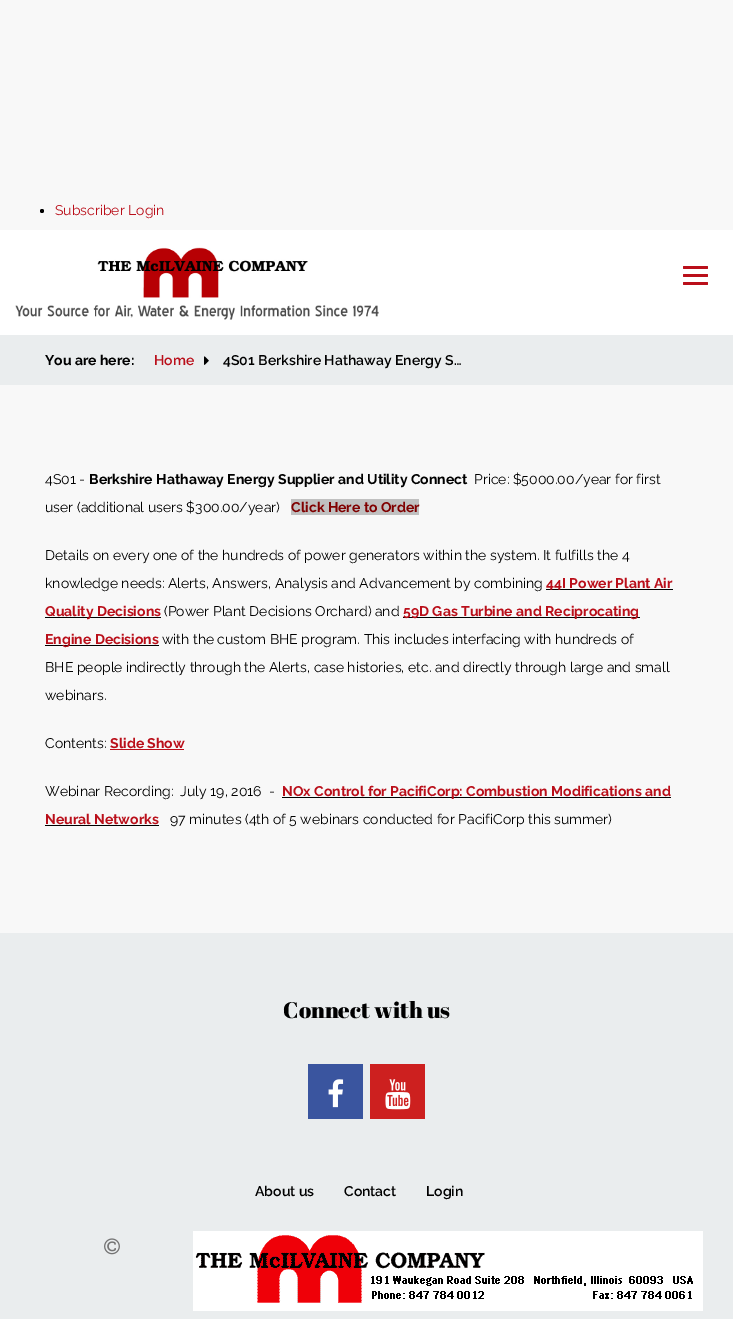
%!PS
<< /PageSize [733 1319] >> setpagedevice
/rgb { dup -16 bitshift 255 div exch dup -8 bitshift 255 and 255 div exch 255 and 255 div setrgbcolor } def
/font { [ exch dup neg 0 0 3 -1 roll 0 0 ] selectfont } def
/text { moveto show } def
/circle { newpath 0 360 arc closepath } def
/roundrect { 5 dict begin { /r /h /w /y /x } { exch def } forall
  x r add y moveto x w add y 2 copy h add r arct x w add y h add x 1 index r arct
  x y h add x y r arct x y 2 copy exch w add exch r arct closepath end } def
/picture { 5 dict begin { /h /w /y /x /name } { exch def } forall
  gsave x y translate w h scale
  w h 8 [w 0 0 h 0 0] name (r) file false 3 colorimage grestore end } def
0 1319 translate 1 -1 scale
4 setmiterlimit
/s1 { /Raleway-Regular 14 font 16#BA0F1A rgb } def
/s2 { /Raleway-Bold 14 font 16#000000 rgb } def
/s3 { /Raleway-SemiBold 14 font 16#BA0F1A rgb } def
/s4 { /Raleway-SemiBold 14 font 16#000000 rgb } def
/s5 { /Raleway-Regular 14 font 16#000000 rgb } def
/s6 { /Raleway-Bold 14 font 16#800000 rgb } def
/s7 { /Raleway-Bold 14 font 16#BA0F1A rgb } def
/s8 { /AbrilFatface-Regular 22.5 font 16#000000 rgb } def
16#F8F8F8 rgb
0 0 733 1319 rectfill
16#000000 rgb
42 211 2 circle fill
s1
(Subscriber Login) 55 215 text
16#FFFFFF rgb
0 230 733 105 rectfill
(pic1.raw) 15 247 364 73 picture
16#BA0F1A rgb
683 266 25 3 1 roundrect fill
683 274 25 3 1 roundrect fill
683 282 25 3 1 roundrect fill
16#EAEDEE rgb
0 335 733 50 rectfill
s2
(You are here:) 45 365 text
s3
(Home) 154 365 text
(pic2.raw) 204 356 5 9 picture
s4
(4S01 Berkshire Hathaway Energy S…) 223 365 text
s5
(4S01 -) 45 484 text
s2
(Berkshire Hathaway Energy Supplier and Utility Connect) 89 484 text
s5
(Price: $5000.00/year for first) 474 484 text
(user \(additional users $300.00/year\)) 45 512 text
16#C0C0C0 rgb
291 499 128 16 rectfill
s6
(Click Here to Order) 291 512 text
s5
(Details on every one of the hundreds of power generators within the system. It fulfills the 4) 45 560 text
(knowledge needs: Alerts, Answers, Analysis and Advancement by combining) 45 588 text
546 589 127 1 rectfill
s7
(44I Power Plant Air) 546 588 text
16#000000 rgb
45 617 116 1 rectfill
s7
(Quality Decisions) 45 616 text
s5
(\(Power Plant Decisions Orchard\) and) 164 616 text
403 617 237 1 rectfill
s7
(59D Gas Turbine and Reciprocating) 403 616 text
16#000000 rgb
45 645 114 1 rectfill
s7
(Engine Decisions) 45 644 text
s5
(with the custom BHE program. This includes interfacing with hundreds of) 162 644 text
(BHE people indirectly through the Alerts, case histories, etc. and directly through large and small) 45 672 text
(webinars.) 45 700 text
(Contents:) 45 748 text
s7
(Slide Show) 110 748 text
110 749 74 1 rectfill
s5
(Webinar Recording:  July 19, 2016  -) 45 796 text
282 797 389 1 rectfill
s7
(NOx Control for PacifiCorp: Combustion Modifications and) 282 796 text
(Neural Networks) 45 824 text
16#000000 rgb
45 825 114 1 rectfill
s5
(97 minutes \(4th of 5 webinars conducted for PacifiCorp this summer\)) 170 824 text
16#EAEDEE rgb
0 933 733 386 rectfill
s8
(Connect with us) 283 1018 text
16#3A559F rgb
308 1064 55 55 rectfill
(pic3.raw) 328 1079 16 29 picture
16#CD201F rgb
370 1064 55 55 rectfill
(pic4.raw) 385 1079 26 31 picture
s4
(About us) 255 1196 text
(Contact) 344 1196 text
(Login) 426 1196 text
(pic5.raw) 193 1231 510 80 picture
(pic6.raw) 104 1238 16 17 picture
showpage
